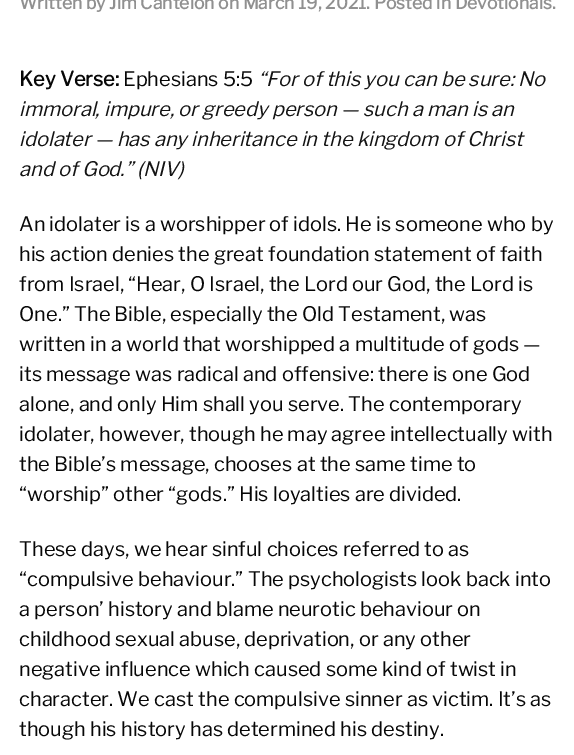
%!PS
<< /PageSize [574 755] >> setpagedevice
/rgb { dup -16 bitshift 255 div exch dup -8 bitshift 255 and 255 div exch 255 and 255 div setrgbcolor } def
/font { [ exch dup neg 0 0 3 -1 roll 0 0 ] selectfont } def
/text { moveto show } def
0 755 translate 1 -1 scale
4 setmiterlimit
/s1 { /LibreFranklin-Bold 17.5 font 16#909090 rgb } def
/s2 { /LibreFranklin-Bold 20 font 16#070707 rgb } def
/s3 { /LibreFranklin-Thin 20 font 16#070707 rgb } def
/s4 { /LibreFranklin-ThinItalic 20 font 16#131313 rgb } def
16#FFFFFF rgb
0 0 574 755 rectfill
s1
(Written by Jim Cantelon on March 19, 2021. Posted in Devotionals.) 19 9 text
s2
(Key Verse:) 19 86 text
s3
(Ephesians 5:5) 123 86 text
s4
(“For of this you can be sure: No) 258 86 text
(immoral, impure, or greedy person — such a man is an) 19 116 text
(idolater — has any inheritance in the kingdom of Christ) 19 146 text
(and of God.” \(NIV\)) 19 176 text
s3
(An idolater is a worshipper of idols. He is someone who by) 19 231 text
(his action denies the great foundation statement of faith) 19 261 text
(from Israel, “Hear, O Israel, the Lord our God, the Lord is) 19 291 text
(One.” The Bible, especially the Old Testament, was) 19 321 text
(written in a world that worshipped a multitude of gods —) 19 351 text
(its message was radical and offensive: there is one God) 19 381 text
(alone, and only Him shall you serve. The contemporary) 19 411 text
(idolater, however, though he may agree intellectually with) 19 441 text
(the Bible’s message, chooses at the same time to) 19 471 text
(“worship” other “gods.” His loyalties are divided.) 19 501 text
(These days, we hear sinful choices referred to as) 19 556 text
(“compulsive behaviour.” The psychologists look back into) 19 586 text
(a person’ history and blame neurotic behaviour on) 19 616 text
(childhood sexual abuse, deprivation, or any other) 19 646 text
(negative influence which caused some kind of twist in) 19 676 text
(character. We cast the compulsive sinner as victim. It’s as) 19 706 text
(though his history has determined his destiny.) 19 736 text
showpage
